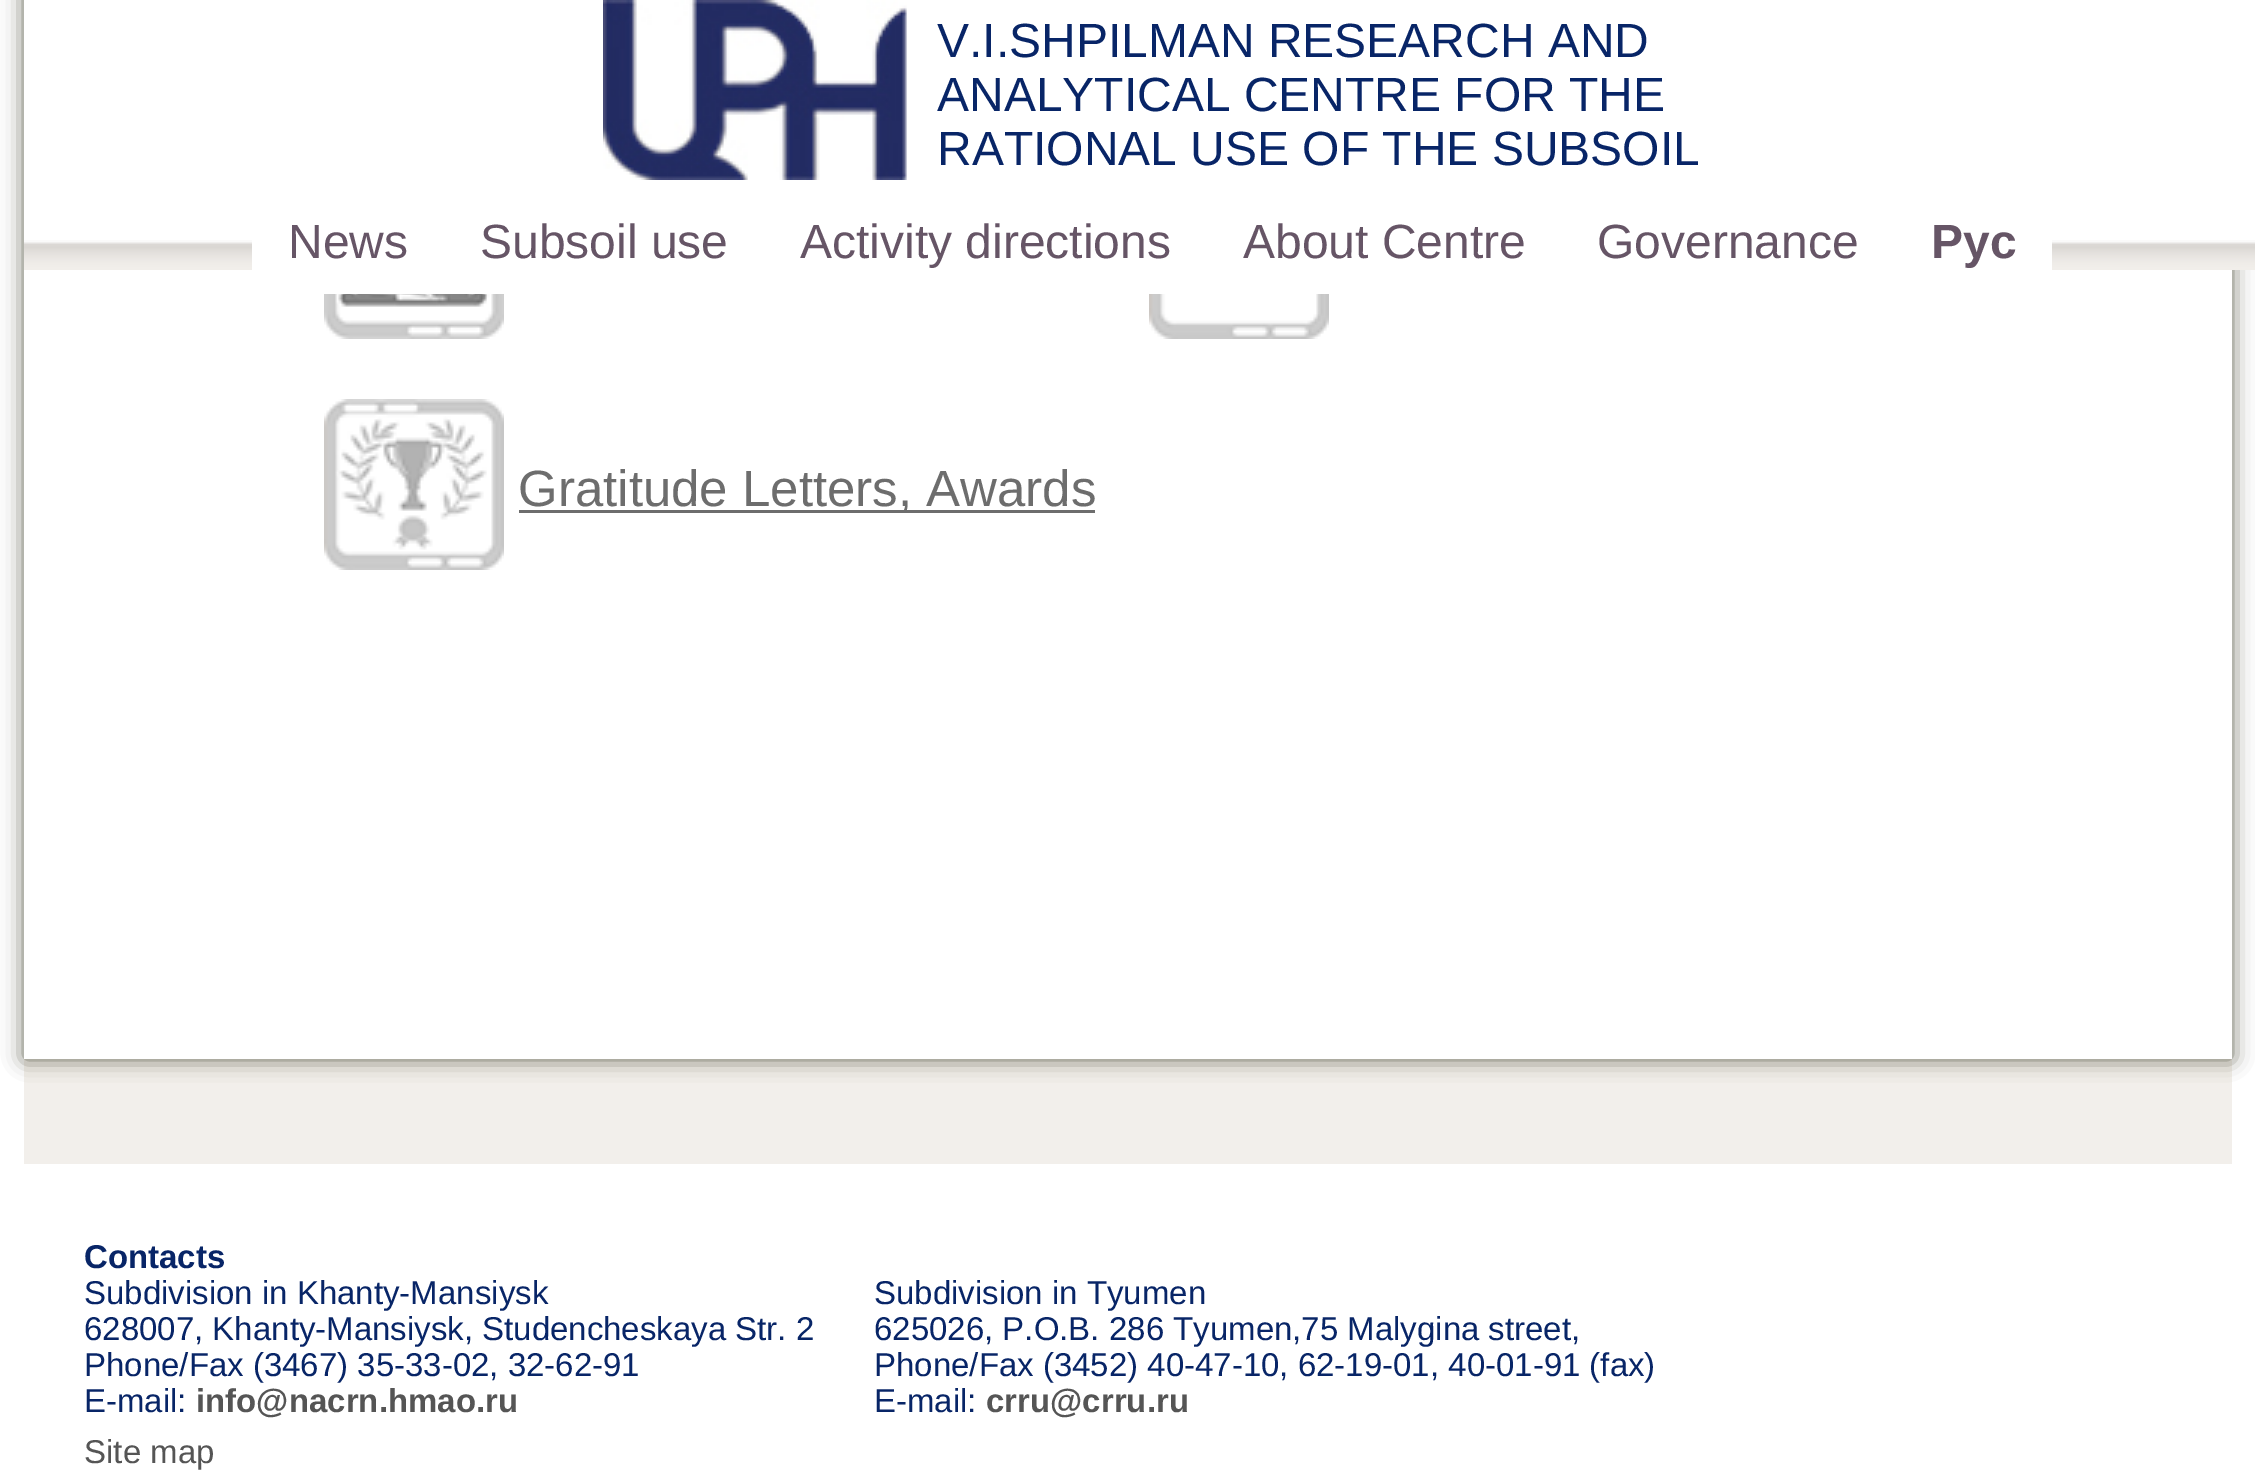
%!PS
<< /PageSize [2255 1477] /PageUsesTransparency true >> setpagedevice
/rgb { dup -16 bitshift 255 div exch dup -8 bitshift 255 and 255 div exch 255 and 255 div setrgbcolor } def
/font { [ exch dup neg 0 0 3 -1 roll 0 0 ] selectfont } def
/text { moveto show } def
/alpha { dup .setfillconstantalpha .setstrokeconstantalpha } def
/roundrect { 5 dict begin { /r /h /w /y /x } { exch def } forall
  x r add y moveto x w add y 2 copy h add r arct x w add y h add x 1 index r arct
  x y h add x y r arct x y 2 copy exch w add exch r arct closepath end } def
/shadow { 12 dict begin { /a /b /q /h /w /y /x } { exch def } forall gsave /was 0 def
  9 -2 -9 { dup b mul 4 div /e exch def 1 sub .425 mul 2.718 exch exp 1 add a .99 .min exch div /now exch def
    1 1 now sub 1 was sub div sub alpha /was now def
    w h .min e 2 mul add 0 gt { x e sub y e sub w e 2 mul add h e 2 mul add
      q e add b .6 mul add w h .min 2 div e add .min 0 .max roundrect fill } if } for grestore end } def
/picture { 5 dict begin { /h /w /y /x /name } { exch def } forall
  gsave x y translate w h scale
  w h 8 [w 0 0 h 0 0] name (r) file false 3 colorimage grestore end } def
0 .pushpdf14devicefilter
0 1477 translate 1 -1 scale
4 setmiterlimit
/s1 { /LiberationSans-Regular 48 font 16#082567 rgb } def
/s2 { /LiberationSans-Regular 48 font 16#665566 rgb } def
/s3 { /LiberationSans-Bold 48 font 16#665566 rgb } def
/s4 { /LiberationSans-Regular 51 font 16#6D6D6D rgb } def
/s5 { /LiberationSans-Bold 33 font 16#082567 rgb } def
/s6 { /LiberationSans-Regular 33 font 16#082567 rgb } def
/s7 { /LiberationSans-Bold 33 font 16#555555 rgb } def
/s8 { /LiberationSans-Regular 33 font 16#555555 rgb } def
16#FFFFFF rgb
0 0 2255 1477 rectfill
16#F2EFEB rgb
24 1059 2208 105 rectfill
16#656656 rgb
24 -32 2208 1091 0 10.5 1 shadow
16#FFFFFF rgb
24 0 2231 240 rectfill
(pic1.raw) 24 240 2231 30 picture
(pic2.raw) 603 0 304 180 picture
s1
(V.I.SHPILMAN RESEARCH AND) 937 57 text
(ANALYTICAL CENTRE FOR THE) 937 111 text
(RATIONAL USE OF THE SUBSOIL) 937 165 text
16#FFFFFF rgb
252 240 1800 30 rectfill
s2
(News) 288 258 text
(Subsoil use) 480 258 text
(Activity directions) 800 258 text
(About Centre) 1243 258 text
(Governance) 1597 258 text
s3
(Рус) 1931 258 text
16#FFFFFF rgb
24 270 2208 789 rectfill
(pic3.raw) 324 294 180 45 picture
(pic4.raw) 1149 294 180 45 picture
(pic5.raw) 324 399 180 171 picture
16#6D6D6D rgb
519 510 576 3 rectfill
s4
(Gratitude Letters, Awards) 518 506 text
s5
(Contacts) 84 1268 text
s6
(Subdivision in Khanty-Mansiysk) 84 1304 text
(628007, Khanty-Mansiysk, Studencheskaya Str. 2) 84 1340 text
(Phone/Fax \(3467\) 35-33-02, 32-62-91) 84 1376 text
(E-mail:) 84 1412 text
s7
(info@nacrn.hmao.ru) 196 1412 text
s6
(Subdivision in Tyumen) 874 1304 text
(625026, P.O.B. 286 Tyumen,75 Malygina street,) 874 1340 text
(Phone/Fax \(3452\) 40-47-10, 62-19-01, 40-01-91 \(fax\)) 874 1376 text
(E-mail:) 874 1412 text
s7
(crru@crru.ru) 986 1412 text
s8
(Site map) 84 1463 text
.poppdf14devicefilter showpage
